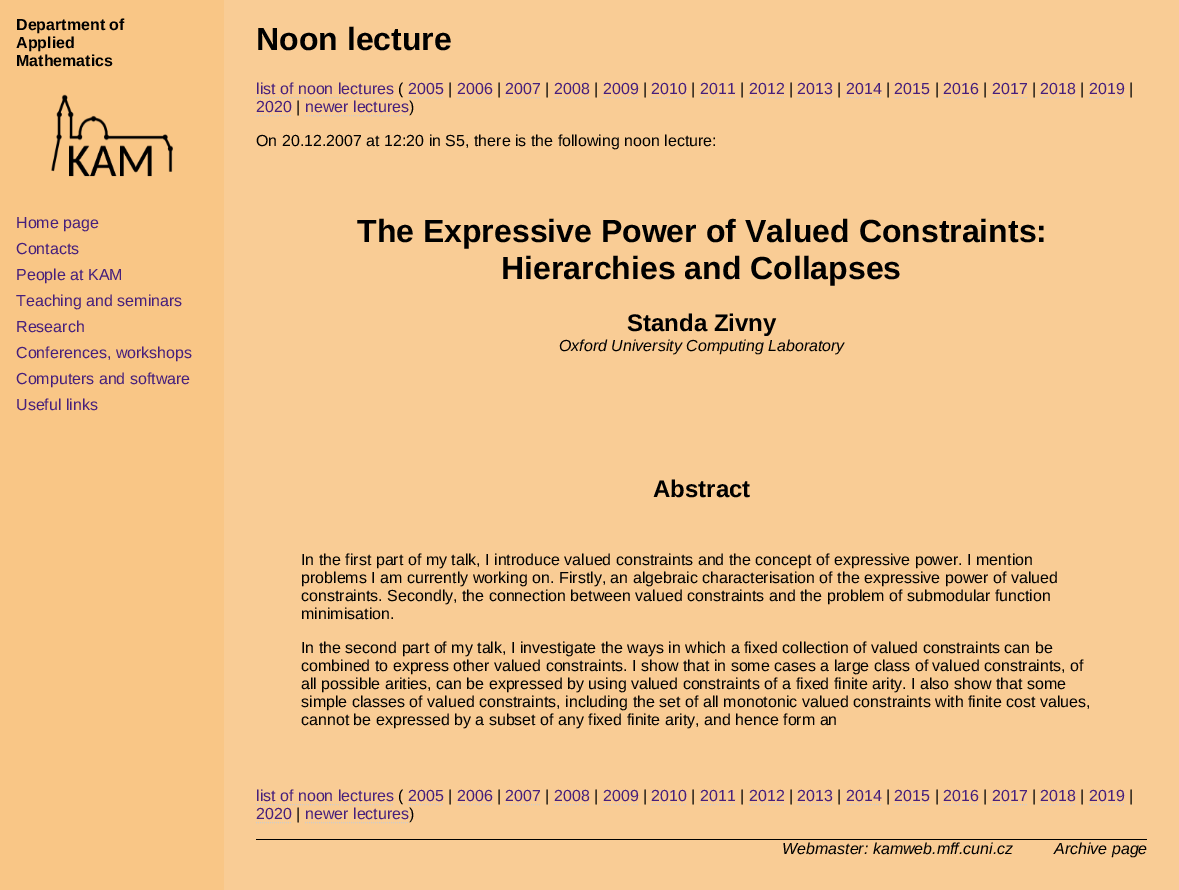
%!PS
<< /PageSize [1179 890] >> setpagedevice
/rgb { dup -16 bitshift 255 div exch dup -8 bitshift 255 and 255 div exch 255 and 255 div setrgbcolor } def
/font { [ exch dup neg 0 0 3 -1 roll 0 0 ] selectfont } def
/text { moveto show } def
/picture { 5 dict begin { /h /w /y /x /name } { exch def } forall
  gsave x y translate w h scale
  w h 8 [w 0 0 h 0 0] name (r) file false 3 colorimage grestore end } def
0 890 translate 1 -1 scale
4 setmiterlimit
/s1 { /LiberationSans-Bold 16 font 16#000000 rgb } def
/s2 { /LiberationSans-Regular 16 font 16#461F7C rgb } def
/s3 { /LiberationSans-Bold 32 font 16#000000 rgb } def
/s4 { /LiberationSans-Regular 16 font 16#000000 rgb } def
/s5 { /LiberationSans-Bold 24 font 16#000000 rgb } def
/s6 { /LiberationSans-Italic 16 font 16#000000 rgb } def
16#F9CC95 rgb
0 0 1179 890 rectfill
16#F9C686 rgb
0 0 224 890 rectfill
s1
(Department of) 16 30 text
(Applied) 16 48 text
(Mathematics) 16 66 text
(pic1.raw) 51 94 122 83 picture
s2
(Home page) 16 228 text
(Contacts) 16 254 text
(People at KAM) 16 280 text
(Teaching and seminars) 16 306 text
(Research) 16 332 text
(Conferences, workshops) 16 358 text
(Computers and software) 16 384 text
(Useful links) 16 410 text
s3
(Noon lecture) 256 50 text
s2
(list of noon lectures) 256 94 text
16#CCCCCC rgb
[1 1] 0 setdash
256 97.5 moveto 394 97.5 lineto stroke
s4
(\() 398 94 text
s2
(2005) 408 94 text
16#CCCCCC rgb
408 97.5 moveto 444 97.5 lineto stroke
s4
(|) 448 94 text
s2
(2006) 457 94 text
16#CCCCCC rgb
457 97.5 moveto 492 97.5 lineto stroke
s4
(|) 497 94 text
s2
(2007) 505 94 text
16#CCCCCC rgb
505 97.5 moveto 541 97.5 lineto stroke
s4
(|) 545 94 text
s2
(2008) 554 94 text
16#CCCCCC rgb
554 97.5 moveto 590 97.5 lineto stroke
s4
(|) 594 94 text
s2
(2009) 603 94 text
16#CCCCCC rgb
603 97.5 moveto 638 97.5 lineto stroke
s4
(|) 643 94 text
s2
(2010) 651 94 text
16#CCCCCC rgb
651 97.5 moveto 687 97.5 lineto stroke
s4
(|) 691 94 text
s2
(2011) 700 94 text
16#CCCCCC rgb
700 97.5 moveto 736 97.5 lineto stroke
s4
(|) 740 94 text
s2
(2012) 749 94 text
16#CCCCCC rgb
749 97.5 moveto 784 97.5 lineto stroke
s4
(|) 789 94 text
s2
(2013) 797 94 text
16#CCCCCC rgb
797 97.5 moveto 833 97.5 lineto stroke
s4
(|) 837 94 text
s2
(2014) 846 94 text
16#CCCCCC rgb
846 97.5 moveto 881 97.5 lineto stroke
s4
(|) 886 94 text
s2
(2015) 894 94 text
16#CCCCCC rgb
894 97.5 moveto 930 97.5 lineto stroke
s4
(|) 935 94 text
s2
(2016) 943 94 text
16#CCCCCC rgb
943 97.5 moveto 979 97.5 lineto stroke
s4
(|) 983 94 text
s2
(2017) 992 94 text
16#CCCCCC rgb
992 97.5 moveto 1027 97.5 lineto stroke
s4
(|) 1032 94 text
s2
(2018) 1040 94 text
16#CCCCCC rgb
1040 97.5 moveto 1076 97.5 lineto stroke
s4
(|) 1080 94 text
s2
(2019) 1089 94 text
16#CCCCCC rgb
1089 97.5 moveto 1125 97.5 lineto stroke
s4
(|) 1129 94 text
s2
(2020) 256 112 text
16#CCCCCC rgb
256 115.5 moveto 292 115.5 lineto stroke
s4
(|) 296 112 text
s2
(newer lectures) 305 112 text
16#CCCCCC rgb
305 115.5 moveto 409 115.5 lineto stroke
s4
(\)) 409 112 text
(On 20.12.2007 at 12:20 in S5, there is the following noon lecture:) 256 146 text
s3
(The Expressive Power of Valued Constraints:) 357 242 text
(Hierarchies and Collapses) 501 279 text
s5
(Standa Zivny) 627 331 text
s6
(Oxford University Computing Laboratory) 559 351 text
s5
(Abstract) 653 497 text
s4
(In the first part of my talk, I introduce valued constraints and the concept of expressive power. I mention) 301 565 text
(problems I am currently working on. Firstly, an algebraic characterisation of the expressive power of valued) 301 583 text
(constraints. Secondly, the connection between valued constraints and the problem of submodular function) 301 601 text
(minimisation.) 301 619 text
(In the second part of my talk, I investigate the ways in which a fixed collection of valued constraints can be) 301 653 text
(combined to express other valued constraints. I show that in some cases a large class of valued constraints, of) 301 671 text
(all possible arities, can be expressed by using valued constraints of a fixed finite arity. I also show that some) 301 689 text
(simple classes of valued constraints, including the set of all monotonic valued constraints with finite cost values,) 301 707 text
(cannot be expressed by a subset of any fixed finite arity, and hence form an) 301 725 text
s2
(list of noon lectures) 256 801 text
16#CCCCCC rgb
256 804.5 moveto 394 804.5 lineto stroke
s4
(\() 398 801 text
s2
(2005) 408 801 text
16#CCCCCC rgb
408 804.5 moveto 444 804.5 lineto stroke
s4
(|) 448 801 text
s2
(2006) 457 801 text
16#CCCCCC rgb
457 804.5 moveto 492 804.5 lineto stroke
s4
(|) 497 801 text
s2
(2007) 505 801 text
16#CCCCCC rgb
505 804.5 moveto 541 804.5 lineto stroke
s4
(|) 545 801 text
s2
(2008) 554 801 text
16#CCCCCC rgb
554 804.5 moveto 590 804.5 lineto stroke
s4
(|) 594 801 text
s2
(2009) 603 801 text
16#CCCCCC rgb
603 804.5 moveto 638 804.5 lineto stroke
s4
(|) 643 801 text
s2
(2010) 651 801 text
16#CCCCCC rgb
651 804.5 moveto 687 804.5 lineto stroke
s4
(|) 691 801 text
s2
(2011) 700 801 text
16#CCCCCC rgb
700 804.5 moveto 736 804.5 lineto stroke
s4
(|) 740 801 text
s2
(2012) 749 801 text
16#CCCCCC rgb
749 804.5 moveto 784 804.5 lineto stroke
s4
(|) 789 801 text
s2
(2013) 797 801 text
16#CCCCCC rgb
797 804.5 moveto 833 804.5 lineto stroke
s4
(|) 837 801 text
s2
(2014) 846 801 text
16#CCCCCC rgb
846 804.5 moveto 881 804.5 lineto stroke
s4
(|) 886 801 text
s2
(2015) 894 801 text
16#CCCCCC rgb
894 804.5 moveto 930 804.5 lineto stroke
s4
(|) 935 801 text
s2
(2016) 943 801 text
16#CCCCCC rgb
943 804.5 moveto 979 804.5 lineto stroke
s4
(|) 983 801 text
s2
(2017) 992 801 text
16#CCCCCC rgb
992 804.5 moveto 1027 804.5 lineto stroke
s4
(|) 1032 801 text
s2
(2018) 1040 801 text
16#CCCCCC rgb
1040 804.5 moveto 1076 804.5 lineto stroke
s4
(|) 1080 801 text
s2
(2019) 1089 801 text
16#CCCCCC rgb
1089 804.5 moveto 1125 804.5 lineto stroke
s4
(|) 1129 801 text
s2
(2020) 256 819 text
16#CCCCCC rgb
256 822.5 moveto 292 822.5 lineto stroke
s4
(|) 296 819 text
s2
(newer lectures) 305 819 text
16#CCCCCC rgb
305 822.5 moveto 409 822.5 lineto stroke
s4
(\)) 409 819 text
256 839 891 1 rectfill
s6
(Webmaster: kamweb.mff.cuni.cz) 782 854 text
(Archive page) 1054 854 text
showpage
